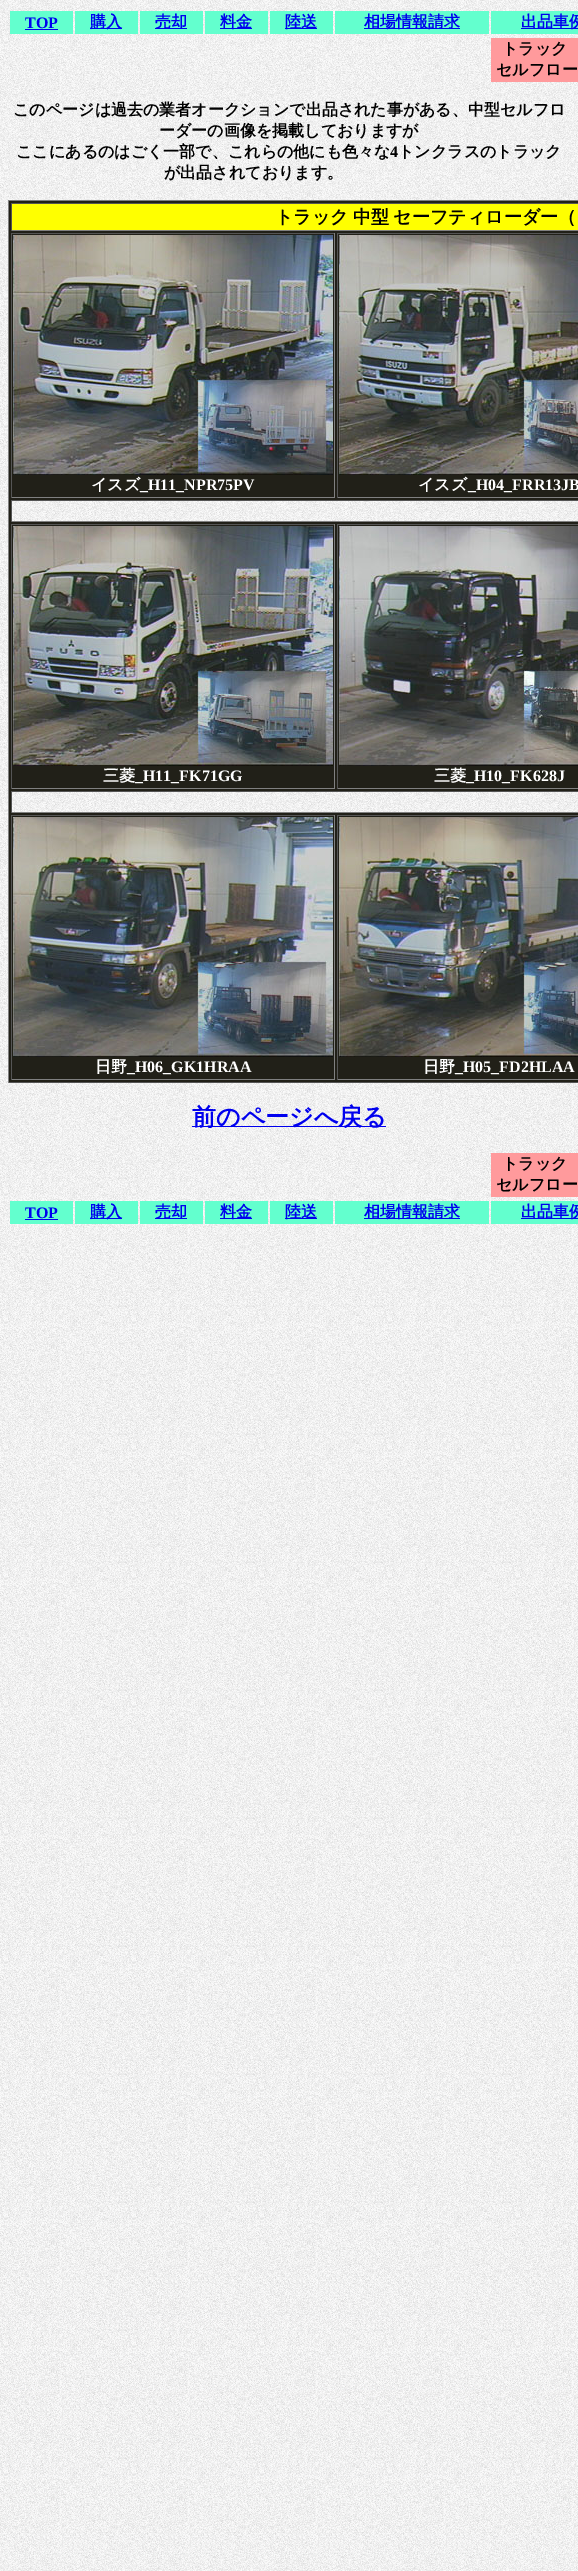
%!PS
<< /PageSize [578 2571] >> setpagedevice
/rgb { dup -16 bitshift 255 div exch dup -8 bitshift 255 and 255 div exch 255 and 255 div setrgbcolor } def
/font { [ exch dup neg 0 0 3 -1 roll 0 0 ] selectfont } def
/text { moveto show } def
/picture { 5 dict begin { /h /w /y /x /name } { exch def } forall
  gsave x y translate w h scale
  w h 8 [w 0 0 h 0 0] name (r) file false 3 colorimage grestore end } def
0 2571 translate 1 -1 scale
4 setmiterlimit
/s1 { /LiberationSerif-Bold 16 font 16#0000EE rgb } def
/s2 { /WenQuanYiZenHei-Bold 16 font 16#0000EE rgb } def
/s3 { /WenQuanYiZenHei-Bold 16 font 16#000000 rgb } def
/s4 { /LiberationSerif-Bold 16 font 16#000000 rgb } def
/s5 { /WenQuanYiZenHei-Bold 16 font 16#FFFFFF rgb } def
/s6 { /LiberationSerif-Bold 16 font 16#FFFFFF rgb } def
/s7 { /WenQuanYiZenHei-Bold 24 font 16#0000EE rgb } def
16#FFFFFF rgb
0 0 578 2571 rectfill
(pic1.raw) 0 0 578 2571 picture
16#63FFCE rgb
10 11 63 23 rectfill
s1
(TOP) 25 28 text
25 29 33 1 rectfill
16#63FFCE rgb
75 11 63 23 rectfill
16#0000EE rgb
90 28 32 1 rectfill
s2
(購入) 90 27 text
16#63FFCE rgb
140 11 63 23 rectfill
16#0000EE rgb
155 28 32 1 rectfill
(売却) 155 27 text
16#63FFCE rgb
205 11 63 23 rectfill
16#0000EE rgb
220 28 32 1 rectfill
(料金) 220 27 text
16#63FFCE rgb
270 11 63 23 rectfill
16#0000EE rgb
285 28 32 1 rectfill
(陸送) 285 27 text
16#63FFCE rgb
335 11 154 23 rectfill
16#0000EE rgb
364 28 96 1 rectfill
(相場情報請求) 364 27 text
16#63FFCE rgb
491 11 87 23 rectfill
16#0000EE rgb
521 28 57 1 rectfill
(出品車例) 521 27 text
16#FF9A9C rgb
491 38 87 44 rectfill
16#000000 rgb
502 54 moveto -1 0 32 (トラック) widthshow
(セルフロー) 496 75 text
(このページは過去の業者オークションで出品された事がある、中型セルフロ) 13 115 text
(ーダーの画像を掲載しておりますが) 159 136 text
(ここにあるのはごく一部で、これらの他にも色々な) 16 157 text
s4
(4) 390 157 text
s3
(トンクラスのトラック) 398 157 text
(が出品されております。) 164 178 text
16#212018 rgb
9 201 569 881 rectfill
16#808080 rgb
8 200 570 1 rectfill
16#555555 rgb
8 1082 570 1 rectfill
16#808080 rgb
8 200 1 883 rectfill
16#FFFF00 rgb
12 204 566 26 rectfill
16#555555 rgb
11 203 567 1 rectfill
16#808080 rgb
11 230 567 1 rectfill
16#555555 rgb
11 203 1 28 rectfill
/WenQuanYiZenHei-Bold 18 font
16#000000 rgb
275 223 moveto -1 0 32 (トラック 中型 セーフティローダー（) widthshow
16#555555 rgb
11 233 324 1 rectfill
16#808080 rgb
334 233 1 265 rectfill
11 497 324 1 rectfill
16#555555 rgb
11 233 1 265 rectfill
(pic2.raw) 13 235 320 240 picture
s5
(イスズ) 91 490 text
s6
(_H11_NPR75PV) 140 490 text
16#555555 rgb
337 233 241 1 rectfill
16#808080 rgb
337 497 241 1 rectfill
16#555555 rgb
337 233 1 265 rectfill
(pic3.raw) 339 235 239 240 picture
s5
(イスズ) 418 490 text
s6
(_H04_FRR13JB) 468 490 text
(pic4.raw) 12 501 566 20 picture
16#555555 rgb
11 500 567 1 rectfill
16#808080 rgb
11 521 567 1 rectfill
16#555555 rgb
11 500 1 22 rectfill
11 524 324 1 rectfill
16#808080 rgb
334 524 1 265 rectfill
11 788 324 1 rectfill
16#555555 rgb
11 524 1 265 rectfill
(pic5.raw) 13 526 320 240 picture
s5
(三菱) 103 781 text
s6
(_H11_FK71GG) 135 781 text
16#555555 rgb
337 524 241 1 rectfill
16#808080 rgb
337 788 241 1 rectfill
16#555555 rgb
337 524 1 265 rectfill
(pic6.raw) 339 526 239 240 picture
s5
(三菱) 434 781 text
s6
(_H10_FK628J) 466 781 text
(pic4.raw) 12 792 566 20 picture
16#555555 rgb
11 791 567 1 rectfill
16#808080 rgb
11 812 567 1 rectfill
16#555555 rgb
11 791 1 22 rectfill
11 815 324 1 rectfill
16#808080 rgb
334 815 1 265 rectfill
11 1079 324 1 rectfill
16#555555 rgb
11 815 1 265 rectfill
(pic7.raw) 13 817 320 240 picture
s5
(日野) 95 1072 text
s6
(_H06_GK1HRAA) 127 1072 text
16#555555 rgb
337 815 241 1 rectfill
16#808080 rgb
337 1079 241 1 rectfill
16#555555 rgb
337 815 1 265 rectfill
(pic8.raw) 339 817 239 240 picture
s5
(日野) 423 1072 text
s6
(_H05_FD2HLAA) 455 1072 text
16#0000EE rgb
192 1126 194 1 rectfill
s7
(前のページへ戻る) 192 1125 text
16#FF9A9C rgb
491 1153 87 44 rectfill
/WenQuanYiZenHei-Bold 16 font
16#000000 rgb
502 1169 moveto -1 0 32 (トラック) widthshow
(セルフロー) 496 1190 text
16#63FFCE rgb
10 1201 63 23 rectfill
s1
(TOP) 25 1218 text
25 1219 33 1 rectfill
16#63FFCE rgb
75 1201 63 23 rectfill
16#0000EE rgb
90 1218 32 1 rectfill
s2
(購入) 90 1217 text
16#63FFCE rgb
140 1201 63 23 rectfill
16#0000EE rgb
155 1218 32 1 rectfill
(売却) 155 1217 text
16#63FFCE rgb
205 1201 63 23 rectfill
16#0000EE rgb
220 1218 32 1 rectfill
(料金) 220 1217 text
16#63FFCE rgb
270 1201 63 23 rectfill
16#0000EE rgb
285 1218 32 1 rectfill
(陸送) 285 1217 text
16#63FFCE rgb
335 1201 154 23 rectfill
16#0000EE rgb
364 1218 96 1 rectfill
(相場情報請求) 364 1217 text
16#63FFCE rgb
491 1201 87 23 rectfill
16#0000EE rgb
521 1218 57 1 rectfill
(出品車例) 521 1217 text
showpage
